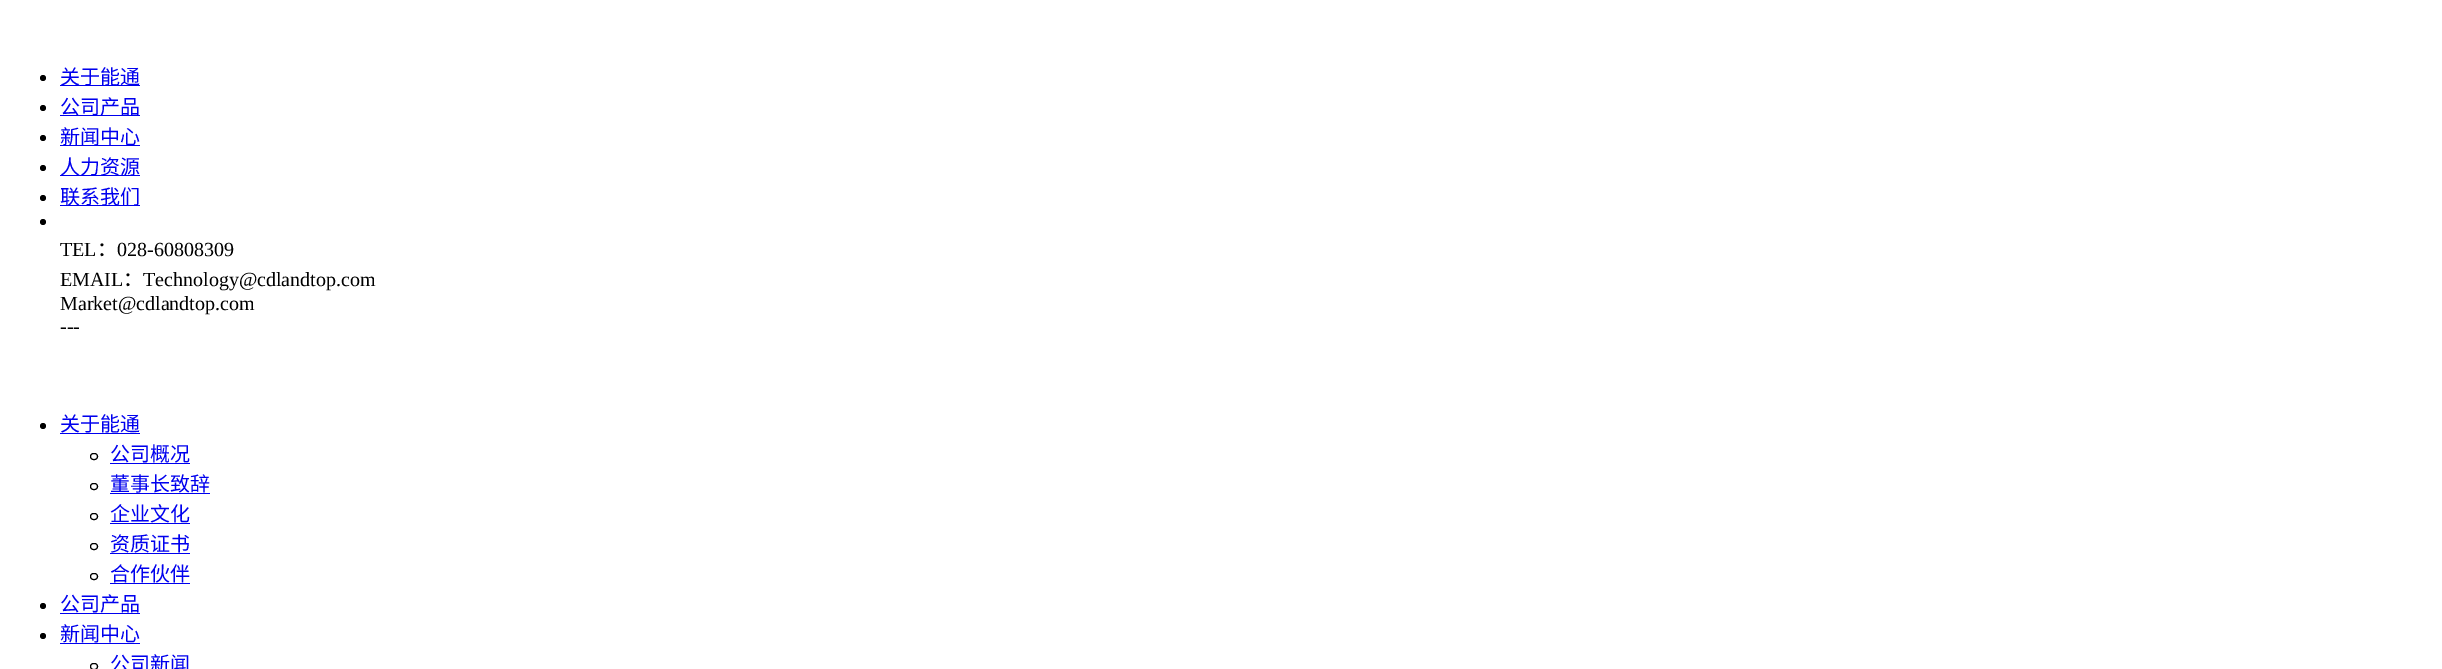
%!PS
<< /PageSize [2442 669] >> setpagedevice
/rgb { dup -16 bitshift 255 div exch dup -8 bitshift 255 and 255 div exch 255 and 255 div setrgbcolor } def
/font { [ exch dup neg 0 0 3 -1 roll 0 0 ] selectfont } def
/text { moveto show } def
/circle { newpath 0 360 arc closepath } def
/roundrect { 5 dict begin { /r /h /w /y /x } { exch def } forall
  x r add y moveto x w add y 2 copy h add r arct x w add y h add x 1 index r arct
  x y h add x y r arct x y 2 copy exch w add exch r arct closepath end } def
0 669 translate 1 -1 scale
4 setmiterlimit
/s1 { /NotoSansCJKSC-Regular 20 font 16#0000EE rgb } def
/s2 { /LiberationSerif-Regular 20 font 16#000000 rgb } def
/s3 { /NotoSansCJKSC-Regular 20 font 16#000000 rgb } def
16#FFFFFF rgb
0 0 2442 669 rectfill
16#000000 rgb
43 78 3 circle fill
16#0000EE rgb
60 85 80 1 rectfill
s1
(关于能通) 60 84 text
16#000000 rgb
43 108 3 circle fill
16#0000EE rgb
60 115 80 1 rectfill
(公司产品) 60 114 text
16#000000 rgb
43 138 3 circle fill
16#0000EE rgb
60 145 80 1 rectfill
(新闻中心) 60 144 text
16#000000 rgb
43 168 3 circle fill
16#0000EE rgb
60 175 80 1 rectfill
(人力资源) 60 174 text
16#000000 rgb
43 198 3 circle fill
16#0000EE rgb
60 205 80 1 rectfill
(联系我们) 60 204 text
16#000000 rgb
43 222 3 circle fill
s2
(TEL) 60 256 text
s3
(：) 97 256 text
s2
(028-60808309) 117 256 text
(EMAIL) 60 286 text
s3
(：) 123 286 text
s2
(Technology@cdlandtop.com) 143 286 text
(Market@cdlandtop.com) 60 310 text
(---) 60 333 text
43 426 3 circle fill
s1
(关于能通) 60 431 text
60 433 80 1 rectfill
16#000000 rgb
90.5 453.5 7 6 3 roundrect stroke
s1
(公司概况) 110 461 text
110 463 80 1 rectfill
16#000000 rgb
90.5 483.5 7 6 3 roundrect stroke
s1
(董事长致辞) 110 491 text
110 493 100 1 rectfill
16#000000 rgb
90.5 513.5 7 6 3 roundrect stroke
s1
(企业文化) 110 521 text
110 523 80 1 rectfill
16#000000 rgb
90.5 543.5 7 6 3 roundrect stroke
s1
(资质证书) 110 551 text
110 553 80 1 rectfill
16#000000 rgb
90.5 573.5 7 6 3 roundrect stroke
s1
(合作伙伴) 110 581 text
110 583 80 1 rectfill
16#000000 rgb
43 606 3 circle fill
s1
(公司产品) 60 611 text
60 613 80 1 rectfill
16#000000 rgb
43 636 3 circle fill
s1
(新闻中心) 60 641 text
60 643 80 1 rectfill
16#000000 rgb
90.5 663.5 7 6 3 roundrect stroke
s1
(公司新闻) 110 671 text
showpage
